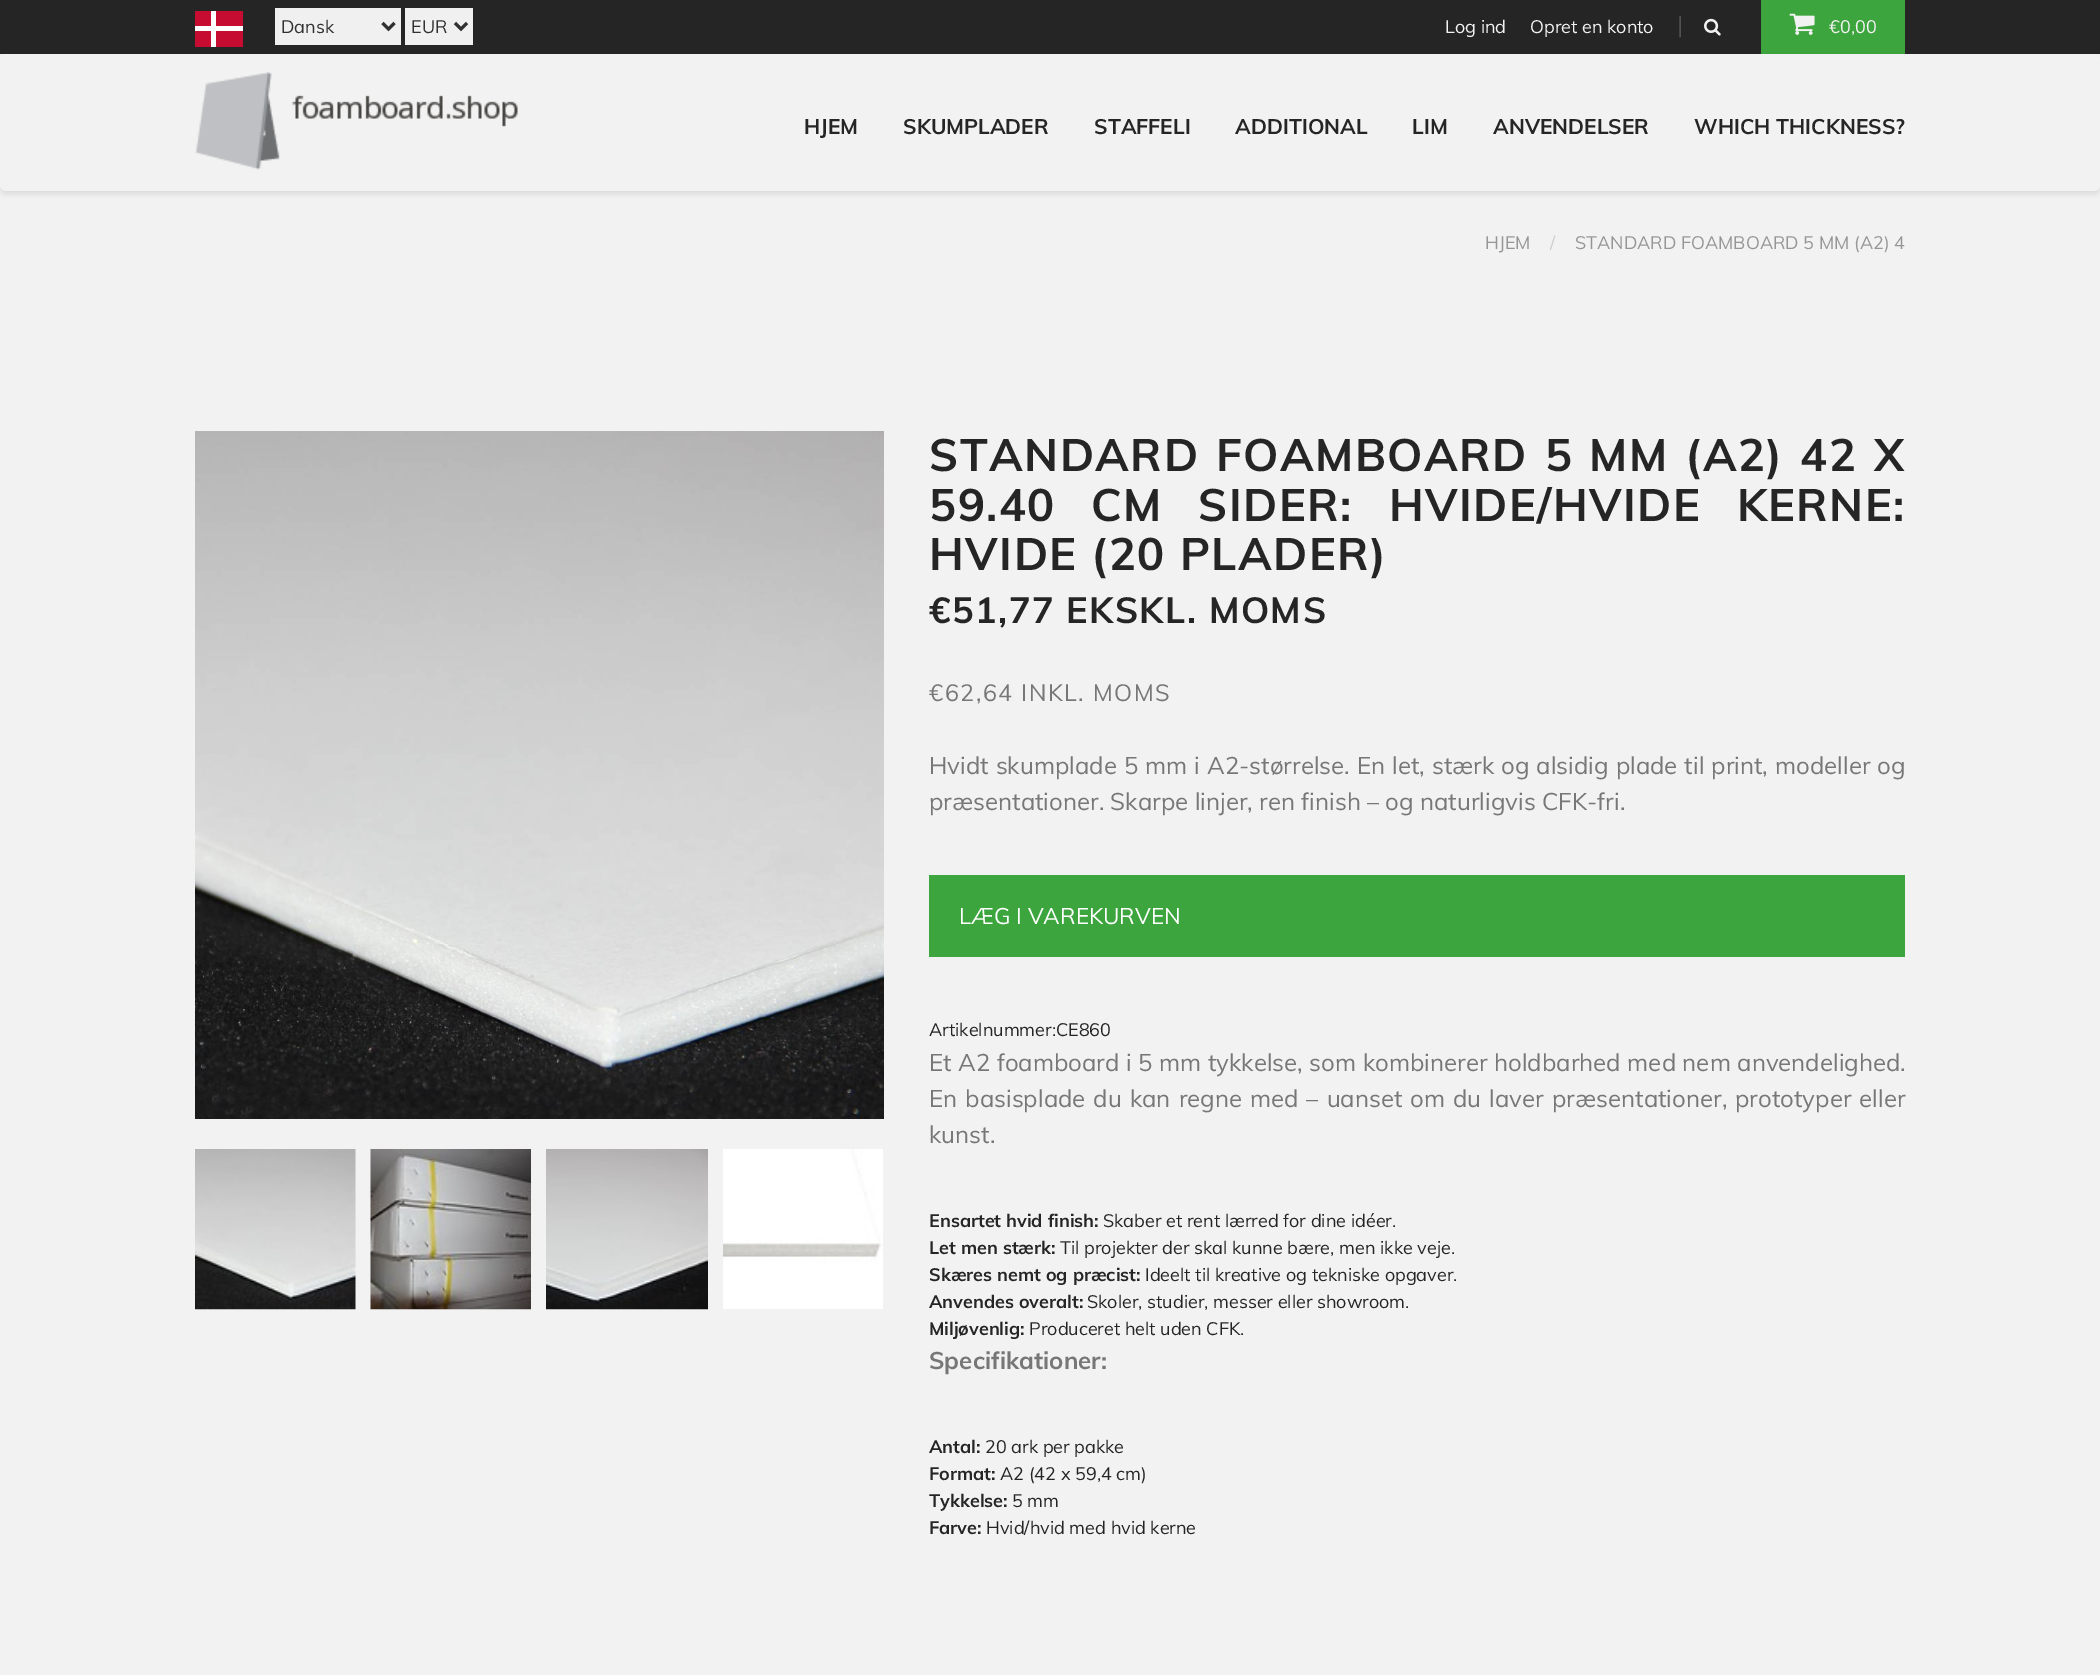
%!PS
<< /PageSize [2100 1675] /PageUsesTransparency true >> setpagedevice
/rgb { dup -16 bitshift 255 div exch dup -8 bitshift 255 and 255 div exch 255 and 255 div setrgbcolor } def
/font { [ exch dup neg 0 0 3 -1 roll 0 0 ] selectfont } def
/text { moveto show } def
/alpha { dup .setfillconstantalpha .setstrokeconstantalpha } def
/roundrect { 5 dict begin { /r /h /w /y /x } { exch def } forall
  x r add y moveto x w add y 2 copy h add r arct x w add y h add x 1 index r arct
  x y h add x y r arct x y 2 copy exch w add exch r arct closepath end } def
/shadow { 12 dict begin { /a /b /q /h /w /y /x } { exch def } forall gsave /was 0 def
  9 -2 -9 { dup b mul 4 div /e exch def 1 sub .425 mul 2.718 exch exp 1 add a .99 .min exch div /now exch def
    1 1 now sub 1 was sub div sub alpha /was now def
    w h .min e 2 mul add 0 gt { x e sub y e sub w e 2 mul add h e 2 mul add
      q e add b .6 mul add w h .min 2 div e add .min 0 .max roundrect fill } if } for grestore end } def
/picture { 5 dict begin { /h /w /y /x /name } { exch def } forall
  gsave x y translate w h scale
  w h 8 [w 0 0 h 0 0] name (r) file false 3 colorimage grestore end } def
0 .pushpdf14devicefilter
0 1675 translate 1 -1 scale
4 setmiterlimit
/s1 { /Muli-Regular 18 font 16#313131 rgb } def
/s2 { /Muli-Regular 18 font 16#F2F2F2 rgb } def
/s3 { /Muli-Regular 24 font 16#515151 rgb } def
/s4 { /Muli-Bold 21 font 16#252525 rgb } def
/s5 { /Muli-Regular 18 font 16#969696 rgb } def
/s6 { /Muli-Regular 18 font 16#CCCCCC rgb } def
/s7 { /Muli-Regular 24 font 16#777777 rgb } def
/s8 { /Muli-Regular 22.5 font 16#FFFFFF rgb } def
/s9 { /Muli-Regular 18 font 16#252525 rgb } def
/s10 { /Muli-Bold 18 font 16#252525 rgb } def
/s11 { /Muli-Bold 24 font 16#777777 rgb } def
16#F2F2F2 rgb
0 0 2100 1675 rectfill
16#252525 rgb
0 0 2100 54 rectfill
16#C60C30 rgb
195 11 48 36 rectfill
16#FFFFFF rgb
211 11 5 36 rectfill
195 26 48 5 rectfill
16#F0F0F0 rgb
275 8 126 37 rectfill
16#313131 rgb
3 setlinewidth
382.5 23 moveto 388.5 29 lineto 394.5 23 lineto stroke
s1
(Dansk) 281 33 text
16#F0F0F0 rgb
405 8 68 37 rectfill
16#313131 rgb
455 23 moveto 461 29 lineto 467 23 lineto stroke
(EUR) 411 33 text
s2
(Log ind) 1445 33 text
(Opret en konto) 1530 33 text
s3
(|) 1677 33 text
(pic1.raw) 1704 18 17 18 picture
16#3DA53D rgb
1761 0 144 54 rectfill
(pic2.raw) 1789 13 26 22 picture
s2
(€0,00) 1829 33 text
16#000000 rgb
0 57 2100 137 6 3 0.1 shadow
16#F2F2F2 rgb
0 54 2100 137 6 roundrect fill
(pic3.raw) 195 72 323 98 picture
s4
(HJEM) 804 134 text
(SKUMPLADER) 903 134 text
(STAFFELI) 1094 134 text
(ADDITIONAL) 1235 134 text
(LIM) 1412 134 text
(ANVENDELSER) 1493 134 text
(WHICH THICKNESS?) 1694 134 text
s5
(HJEM) 1485 249 text
s6
(/) 1550 249 text
s5
(STANDARD FOAMBOARD 5 MM \(A2\) 4) 1575 249 text
(pic4.raw) 195 431 689 688 picture
(pic5.raw) 195 1149 161 161 picture
(pic6.raw) 370 1149 161 161 picture
(pic7.raw) 546 1149 162 161 picture
(pic8.raw) 723 1149 160 160 picture
/Muli-Bold 45 font
16#252525 rgb
929 471 moveto 2.5 0 32 1.5 0 (STANDARD FOAMBOARD 5 MM \(A2\) 42 X) awidthshow
929 521 moveto 21.5 0 32 1.5 0 (59.40 CM SIDER: HVIDE/HVIDE KERNE:) awidthshow
929 570 moveto 1.5 0 (HVIDE \(20 PLADER\)) ashow
/Muli-Bold 36 font
929 623 moveto 1.5 0 (€51,77 EKSKL. MOMS) ashow
/Muli-Regular 23.4 font
16#777777 rgb
929 701 moveto 1.5 0 (€62,64 INKL. MOMS) ashow
/Muli-Regular 24 font
929 774 moveto 0.7 0 32 (Hvidt skumplade 5 mm i A2-størrelse. En let, stærk og alsidig plade til print, modeller og) widthshow
(præsentationer. Skarpe linjer, ren finish – og naturligvis CFK-fri.) 929 810 text
16#3DA53D rgb
929 875 976 82 rectfill
s8
(LÆG I VAREKURVEN) 959 924 text
s9
(Artikelnummer:CE860) 929 1036 text
/Muli-Regular 24 font
16#777777 rgb
929 1071 moveto 0.25 0 32 (Et A2 foamboard i 5 mm tykkelse, som kombinerer holdbarhed med nem anvendelighed.) widthshow
929 1107 moveto 1.75 0 32 (En basisplade du kan regne med – uanset om du laver præsentationer, prototyper eller) widthshow
(kunst.) 929 1143 text
s10
(Ensartet hvid finish:) 929 1227 text
s9
(Skaber et rent lærred for dine idéer.) 1103 1227 text
s10
(Let men stærk:) 929 1254 text
s9
(Til projekter der skal kunne bære, men ikke veje.) 1060 1254 text
s10
(Skæres nemt og præcist:) 929 1281 text
s9
(Ideelt til kreative og tekniske opgaver.) 1145 1281 text
s10
(Anvendes overalt:) 929 1308 text
s9
(Skoler, studier, messer eller showroom.) 1087 1308 text
s10
(Miljøvenlig:) 929 1335 text
s9
(Produceret helt uden CFK.) 1029 1335 text
s11
(Specifikationer:) 929 1369 text
s10
(Antal:) 929 1453 text
s9
(20 ark per pakke) 985 1453 text
s10
(Format:) 929 1480 text
s9
(A2 \(42 x 59,4 cm\)) 1000 1480 text
s10
(Tykkelse:) 929 1507 text
s9
(5 mm) 1012 1507 text
s10
(Farve:) 929 1534 text
s9
(Hvid/hvid med hvid kerne) 986 1534 text
.poppdf14devicefilter showpage
